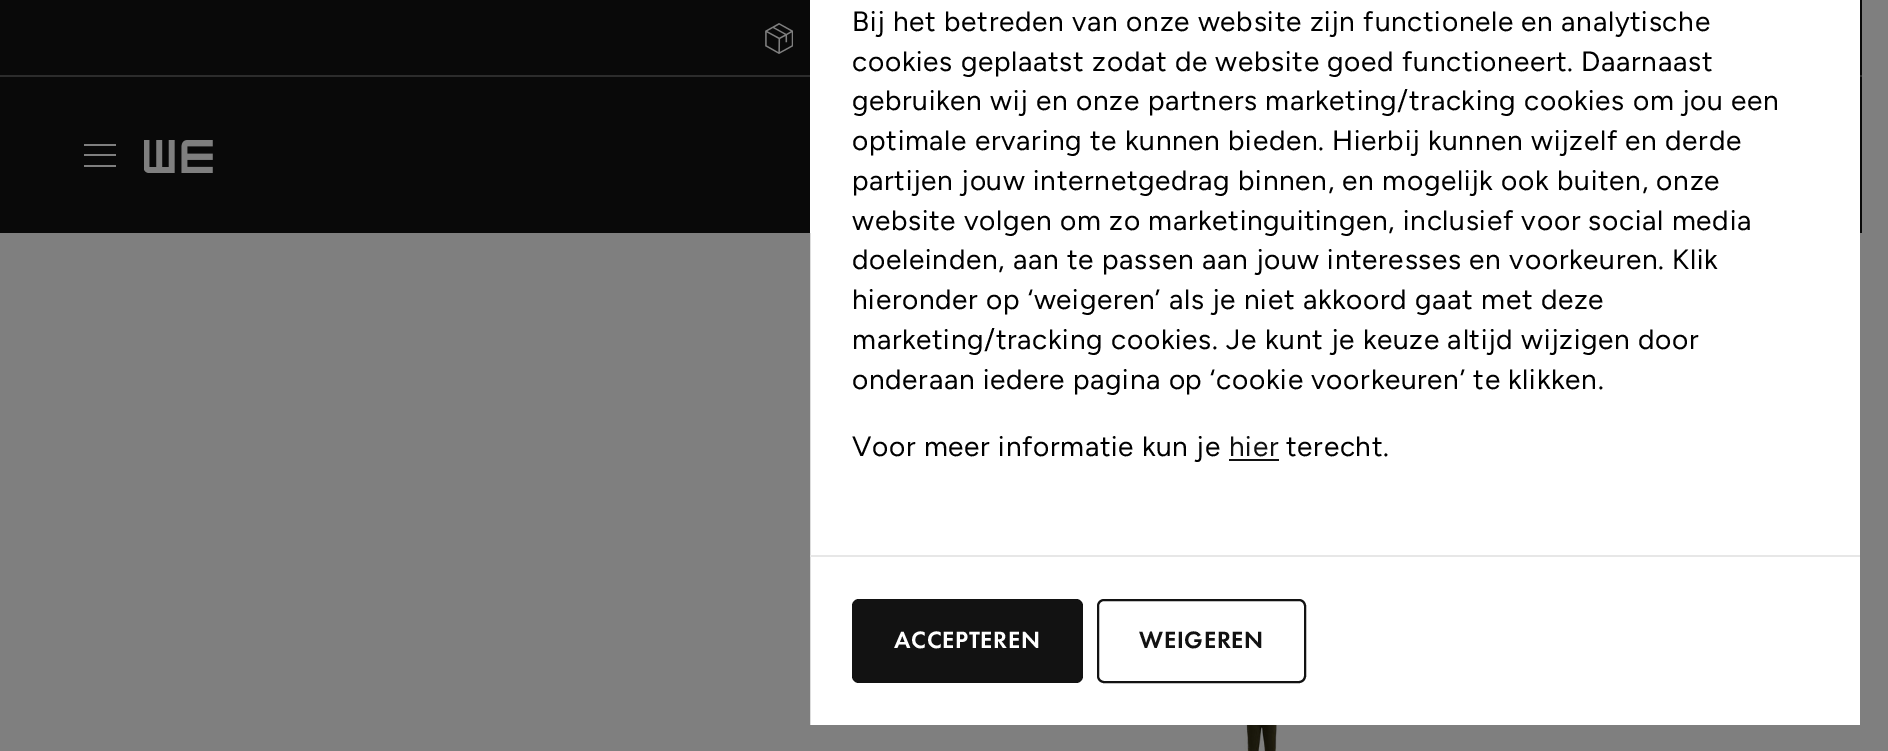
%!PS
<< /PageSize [1888 751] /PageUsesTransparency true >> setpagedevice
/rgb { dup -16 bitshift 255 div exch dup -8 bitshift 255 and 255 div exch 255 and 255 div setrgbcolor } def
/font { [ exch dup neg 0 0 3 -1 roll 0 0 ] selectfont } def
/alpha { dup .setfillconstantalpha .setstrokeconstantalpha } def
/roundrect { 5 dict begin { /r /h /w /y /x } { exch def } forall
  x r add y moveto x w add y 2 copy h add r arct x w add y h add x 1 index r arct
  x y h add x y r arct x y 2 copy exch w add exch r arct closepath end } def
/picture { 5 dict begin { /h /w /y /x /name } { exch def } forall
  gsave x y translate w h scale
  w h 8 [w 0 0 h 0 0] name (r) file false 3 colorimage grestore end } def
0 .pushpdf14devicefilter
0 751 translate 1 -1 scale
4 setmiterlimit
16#FFFFFF rgb
0 0 1888 751 rectfill
16#121212 rgb
0 0 1862 75 rectfill
16#595959 rgb
0 75 1862 2 rectfill
(pic1.raw) 765 23 28 31 picture
16#121212 rgb
0 77 1862 156 rectfill
16#FFFFFF rgb
84 144 32 2 rectfill
84 154 32 2 rectfill
84 165 32 2 rectfill
(pic2.raw) 144 140 69 33 picture
(pic3.raw) 1244 725 33 26 picture
0.5 alpha
16#000000 rgb
279972 setlinewidth
-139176 -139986 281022 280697 rectstroke
1 alpha
16#FFFFFF rgb
810 0 1050 233 rectfill
/Figtree-Regular 28 font
16#000000 rgb
852 31 moveto 0.73 0 (Bij het betreden van onze website zijn functionele en analytische) ashow
852 71 moveto 0.73 0 (cookies geplaatst zodat de website goed functioneert. Daarnaast) ashow
852 110 moveto 0.73 0 (gebruiken wij en onze partners marketing/tracking cookies om jou een) ashow
852 150 moveto 0.73 0 (optimale ervaring te kunnen bieden. Hierbij kunnen wijzelf en derde) ashow
852 190 moveto 0.73 0 (partijen jouw internetgedrag binnen, en mogelijk ook buiten, onze) ashow
852 230 moveto 0.73 0 (website volgen om zo marketinguitingen, inclusief voor social media) ashow
852 269 moveto 0.73 0 (doeleinden, aan te passen aan jouw interesses en voorkeuren. Klik) ashow
852 309 moveto 0.73 0 (hieronder op ‘weigeren’ als je niet akkoord gaat met deze) ashow
852 349 moveto 0.73 0 (marketing/tracking cookies. Je kunt je keuze altijd wijzigen door) ashow
852 389 moveto 0.73 0 (onderaan iedere pagina op ‘cookie voorkeuren’ te klikken.) ashow
852 456 moveto 0.73 0 (Voor meer informatie kun je) ashow
16#121212 rgb
1229 456 moveto 0.73 0 (hier) ashow
1229 459 50 2 rectfill
16#000000 rgb
1286 456 moveto 0.73 0 (terecht.) ashow
16#E7E7E7 rgb
810 555 1050 2 rectfill
16#121212 rgb
852 599 231 84 7 roundrect fill
/FuturaPT-Medium 24.5 font
16#FFFFFF rgb
894 648 moveto 0.73 0 (ACCEPTEREN) ashow
16#121212 rgb
2 setlinewidth
1098 600 207 82 6 roundrect stroke
1139 648 moveto 0.73 0 (WEIGEREN) ashow
.poppdf14devicefilter showpage
